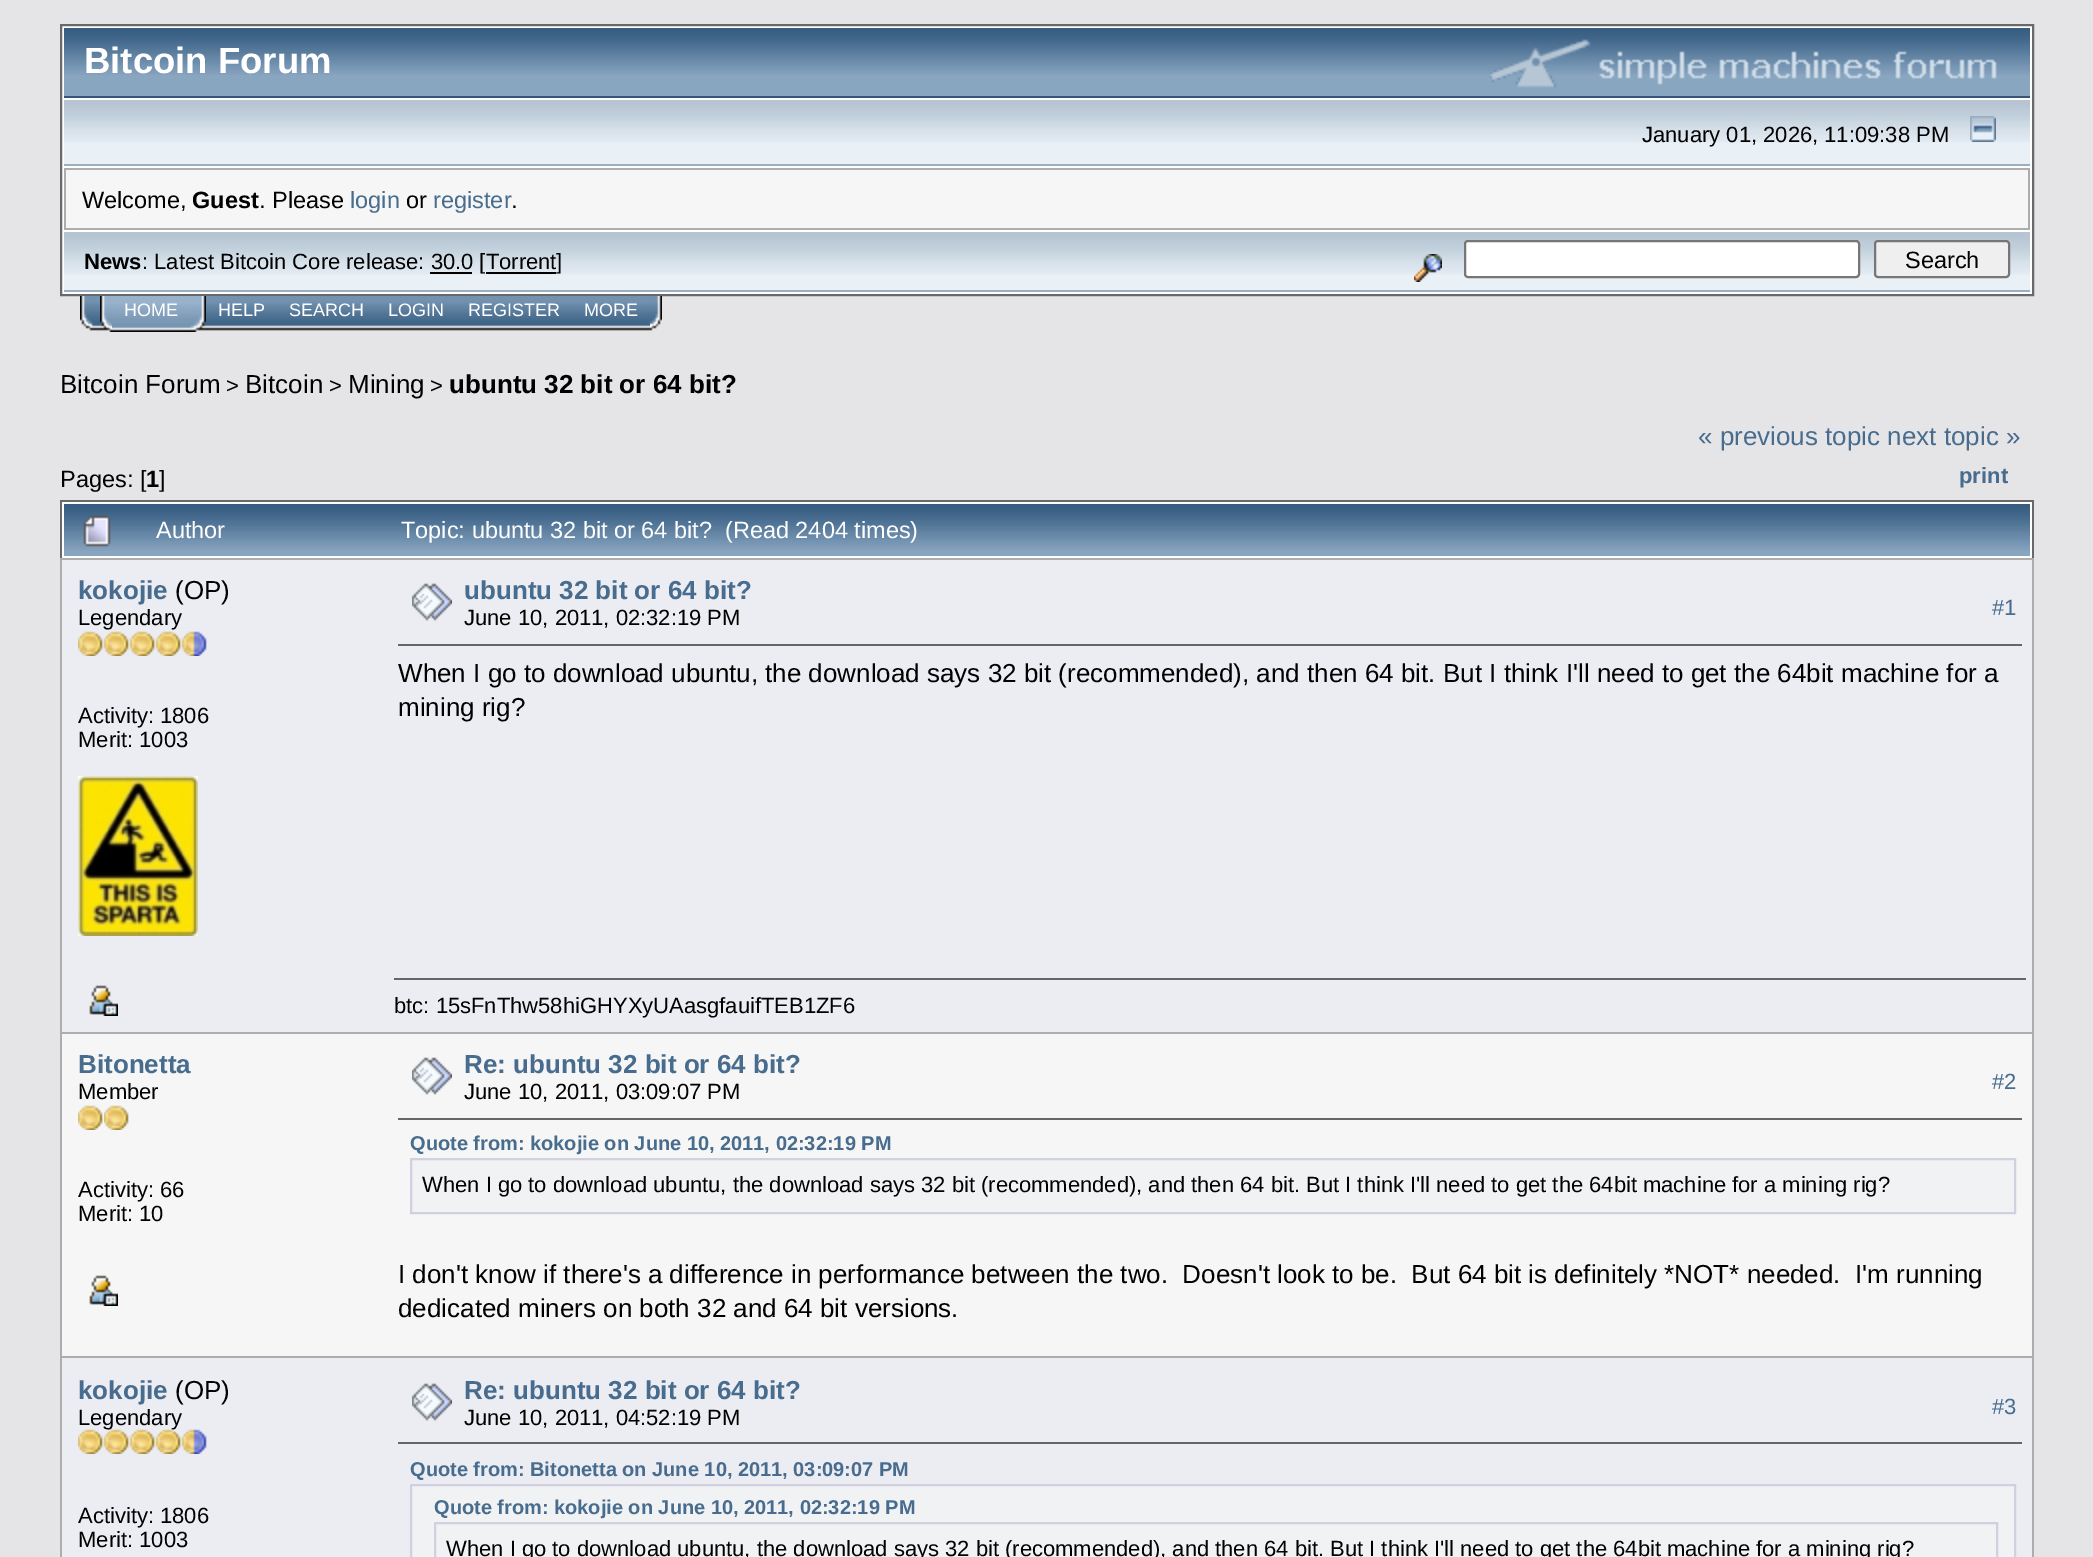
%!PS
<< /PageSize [2093 1557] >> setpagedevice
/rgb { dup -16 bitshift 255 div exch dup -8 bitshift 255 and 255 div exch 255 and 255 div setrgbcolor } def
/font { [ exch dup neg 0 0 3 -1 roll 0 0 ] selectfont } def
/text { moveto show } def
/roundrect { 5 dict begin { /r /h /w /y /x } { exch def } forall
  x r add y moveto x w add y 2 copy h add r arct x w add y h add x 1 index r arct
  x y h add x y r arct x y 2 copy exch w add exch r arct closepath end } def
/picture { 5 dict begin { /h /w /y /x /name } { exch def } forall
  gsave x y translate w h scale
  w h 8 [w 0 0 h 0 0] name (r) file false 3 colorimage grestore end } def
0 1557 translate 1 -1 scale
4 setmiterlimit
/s1 { /LiberationSans-Bold 36.5 font 16#FFFFFF rgb } def
/s2 { /LiberationSans-Regular 22 font 16#000000 rgb } def
/s3 { /LiberationSans-Regular 23.5 font 16#000000 rgb } def
/s4 { /LiberationSans-Bold 23.5 font 16#000000 rgb } def
/s5 { /LiberationSans-Regular 23.5 font 16#476C8E rgb } def
/s6 { /LiberationSans-Bold 22 font 16#000000 rgb } def
/s7 { /LiberationSans-Regular 18 font 16#FFFFFF rgb } def
/s8 { /LiberationSans-Regular 26 font 16#000000 rgb } def
/s9 { /LiberationSans-Bold 26 font 16#000000 rgb } def
/s10 { /LiberationSans-Regular 26 font 16#476C8E rgb } def
/s11 { /LiberationSans-Bold 22 font 16#476C8E rgb } def
/s12 { /LiberationSans-Regular 23.5 font 16#FFFFFF rgb } def
/s13 { /LiberationSans-Bold 26 font 16#476C8E rgb } def
/s14 { /LiberationSans-Regular 22 font 16#476C8E rgb } def
/s15 { /LiberationSans-Bold 20 font 16#476C8E rgb } def
16#E5E5E8 rgb
0 0 2093 1557 rectfill
16#FFFFFF rgb
61 25 moveto 2033 25 lineto 2033 295 lineto 61 295 lineto closepath gsave fill grestore
16#696969 rgb
2 setlinewidth
stroke
16#88A6C0 rgb
64 75 1966 21 rectfill
(pic1.raw) 64 28 662 47 picture
16#375576 rgb
64 96 1966 2 rectfill
s1
(Bitcoin Forum) 84 73 text
(pic2.raw) 726 28 1304 47 picture
(pic3.raw) 1490 39 507 49 picture
16#E9F0F6 rgb
64 143 1966 21 rectfill
(pic4.raw) 64 100 1966 43 picture
16#9BAEBF rgb
64 164 1966 2 rectfill
s2
(January 01, 2026, 11:09:38 PM) 1642 142 text
(pic5.raw) 1970 116 26 26 picture
16#ADADAD rgb
64 168 1966 62 rectfill
16#F6F6F6 rgb
66 170 1962 58 rectfill
s3
(Welcome,) 82 208 text
s4
(Guest) 192 208 text
s3
(. Please) 259 208 text
s5
(login) 350 208 text
s3
(or) 406 208 text
s5
(register) 433 208 text
s3
(.) 511 208 text
16#E9F0F6 rgb
64 275 1966 15 rectfill
(pic6.raw) 64 232 1316 43 picture
16#9BAEBF rgb
64 290 1966 2 rectfill
s6
(News) 84 269 text
s2
(: Latest Bitcoin Core release: 30.0 [Torrent]) 142 269 text
430 272 42 2 rectfill
486 272 70 2 rectfill
(pic7.raw) 1380 232 650 43 picture
(pic8.raw) 1414 254 28 28 picture
16#FFFFFF rgb
1465 241 394 36 3 roundrect gsave fill grestore
16#767676 rgb
stroke
16#EFEFEF rgb
1875 241 134 36 3 roundrect gsave fill grestore
16#767676 rgb
stroke
s3
(Search) 1905 268 text
(pic9.raw) 80 296 20 35 picture
(pic10.raw) 100 296 12 36 picture
(pic11.raw) 112 296 78 36 picture
s7
(HOME) 124 316 text
(pic12.raw) 190 296 16 36 picture
(pic13.raw) 206 296 72 35 picture
(HELP) 218 316 text
(pic14.raw) 278 296 98 35 picture
(SEARCH) 289 316 text
(pic15.raw) 376 296 80 35 picture
(LOGIN) 388 316 text
(pic16.raw) 456 296 116 35 picture
(REGISTER) 468 316 text
(pic17.raw) 572 296 78 35 picture
(MORE) 584 316 text
(pic18.raw) 650 296 12 35 picture
s8
(Bitcoin Forum) 60 393 text
s2
(>) 226 393 text
s8
(Bitcoin) 245 393 text
s2
(>) 329 393 text
s8
(Mining) 348 393 text
s2
(>) 430 393 text
s9
(ubuntu 32 bit or 64 bit?) 449 393 text
s3
(Pages: [) 60 487 text
s4
(1) 146 487 text
s3
(]) 159 487 text
s10
(« previous topic next topic ») 1698 445 text
s11
(print) 1959 483 text
16#FFFFFF rgb
62 502 1970 56 rectfill
16#696969 rgb
60 500 1974 2 rectfill
2032 500 2 58 rectfill
60 500 2 58 rectfill
16#88A6C0 rgb
64 551 1966 5 rectfill
(pic19.raw) 64 504 72 47 picture
(pic20.raw) 83 515 28 32 picture
(pic21.raw) 136 504 252 47 picture
s12
(Author) 156 538 text
(pic22.raw) 388 504 1642 47 picture
(Topic: ubuntu 32 bit or 64 bit?  \(Read 2404 times\)) 401 538 text
16#ADADAD rgb
60 558 1974 999 rectfill
16#ECEDF3 rgb
62 560 1970 472 rectfill
s13
(kokojie) 78 599 text
s8
(\(OP\)) 175 599 text
s2
(Legendary) 78 625 text
(pic23.raw) 78 631 129 25 picture
(Activity: 1806) 78 723 text
(Merit: 1003) 78 747 text
(pic24.raw) 78 776 120 160 picture
(pic25.raw) 89 985 29 31 picture
(pic26.raw) 412 583 40 38 picture
s13
(ubuntu 32 bit or 64 bit?) 464 599 text
s2
(June 10, 2011, 02:32:19 PM) 464 625 text
s14
(#1) 1992 615 text
16#666666 rgb
398 644 1624 2 rectfill
s8
(When I go to download ubuntu, the download says 32 bit \(recommended\), and then 64 bit. But I think I'll need to get the 64bit machine for a) 398 682 text
(mining rig?) 398 716 text
16#666666 rgb
394 978 1632 2 rectfill
s2
(btc: 15sFnThw58hiGHYXyUAasgfauifTEB1ZF6) 394 1013 text
16#F6F6F6 rgb
62 1034 1970 322 rectfill
s13
(Bitonetta) 78 1073 text
s2
(Member) 78 1099 text
(pic27.raw) 78 1105 25 25 picture
(pic27.raw) 104 1105 25 25 picture
(Activity: 66) 78 1197 text
(Merit: 10) 78 1221 text
(pic28.raw) 89 1275 29 31 picture
(pic29.raw) 412 1057 40 38 picture
s13
(Re: ubuntu 32 bit or 64 bit?) 464 1073 text
s2
(June 10, 2011, 03:09:07 PM) 464 1099 text
s14
(#2) 1992 1089 text
16#666666 rgb
398 1118 1624 2 rectfill
s15
(Quote from: kokojie on June 10, 2011, 02:32:19 PM) 410 1150 text
16#F1F2F4 rgb
411 1159 moveto 2015 1159 lineto 2015 1213 lineto 411 1213 lineto closepath gsave fill grestore
16#D0D0E0 rgb
stroke
s2
(When I go to download ubuntu, the download says 32 bit \(recommended\), and then 64 bit. But I think I'll need to get the 64bit machine for a mining rig?) 422 1192 text
s8
(I don't know if there's a difference in performance between the two.  Doesn't look to be.  But 64 bit is definitely *NOT* needed.  I'm running) 398 1283 text
(dedicated miners on both 32 and 64 bit versions.) 398 1317 text
16#ECEDF3 rgb
62 1358 1970 199 rectfill
s13
(kokojie) 78 1399 text
s8
(\(OP\)) 175 1399 text
s2
(Legendary) 78 1425 text
(pic30.raw) 78 1429 129 25 picture
(Activity: 1806) 78 1523 text
(Merit: 1003) 78 1547 text
(pic26.raw) 412 1383 40 38 picture
s13
(Re: ubuntu 32 bit or 64 bit?) 464 1399 text
s2
(June 10, 2011, 04:52:19 PM) 464 1425 text
s14
(#3) 1992 1414 text
16#666666 rgb
398 1442 1624 2 rectfill
s15
(Quote from: Bitonetta on June 10, 2011, 03:09:07 PM) 410 1476 text
16#F1F2F4 rgb
411 1485 moveto 2015 1485 lineto 2015 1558 lineto 411 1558 lineto closepath gsave fill grestore
16#D0D0E0 rgb
stroke
s15
(Quote from: kokojie on June 10, 2011, 02:32:19 PM) 434 1514 text
16#D0D0E0 rgb
435 1523 1562 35 rectstroke
s2
(When I go to download ubuntu, the download says 32 bit \(recommended\), and then 64 bit. But I think I'll need to get the 64bit machine for a mining rig?) 446 1556 text
showpage
